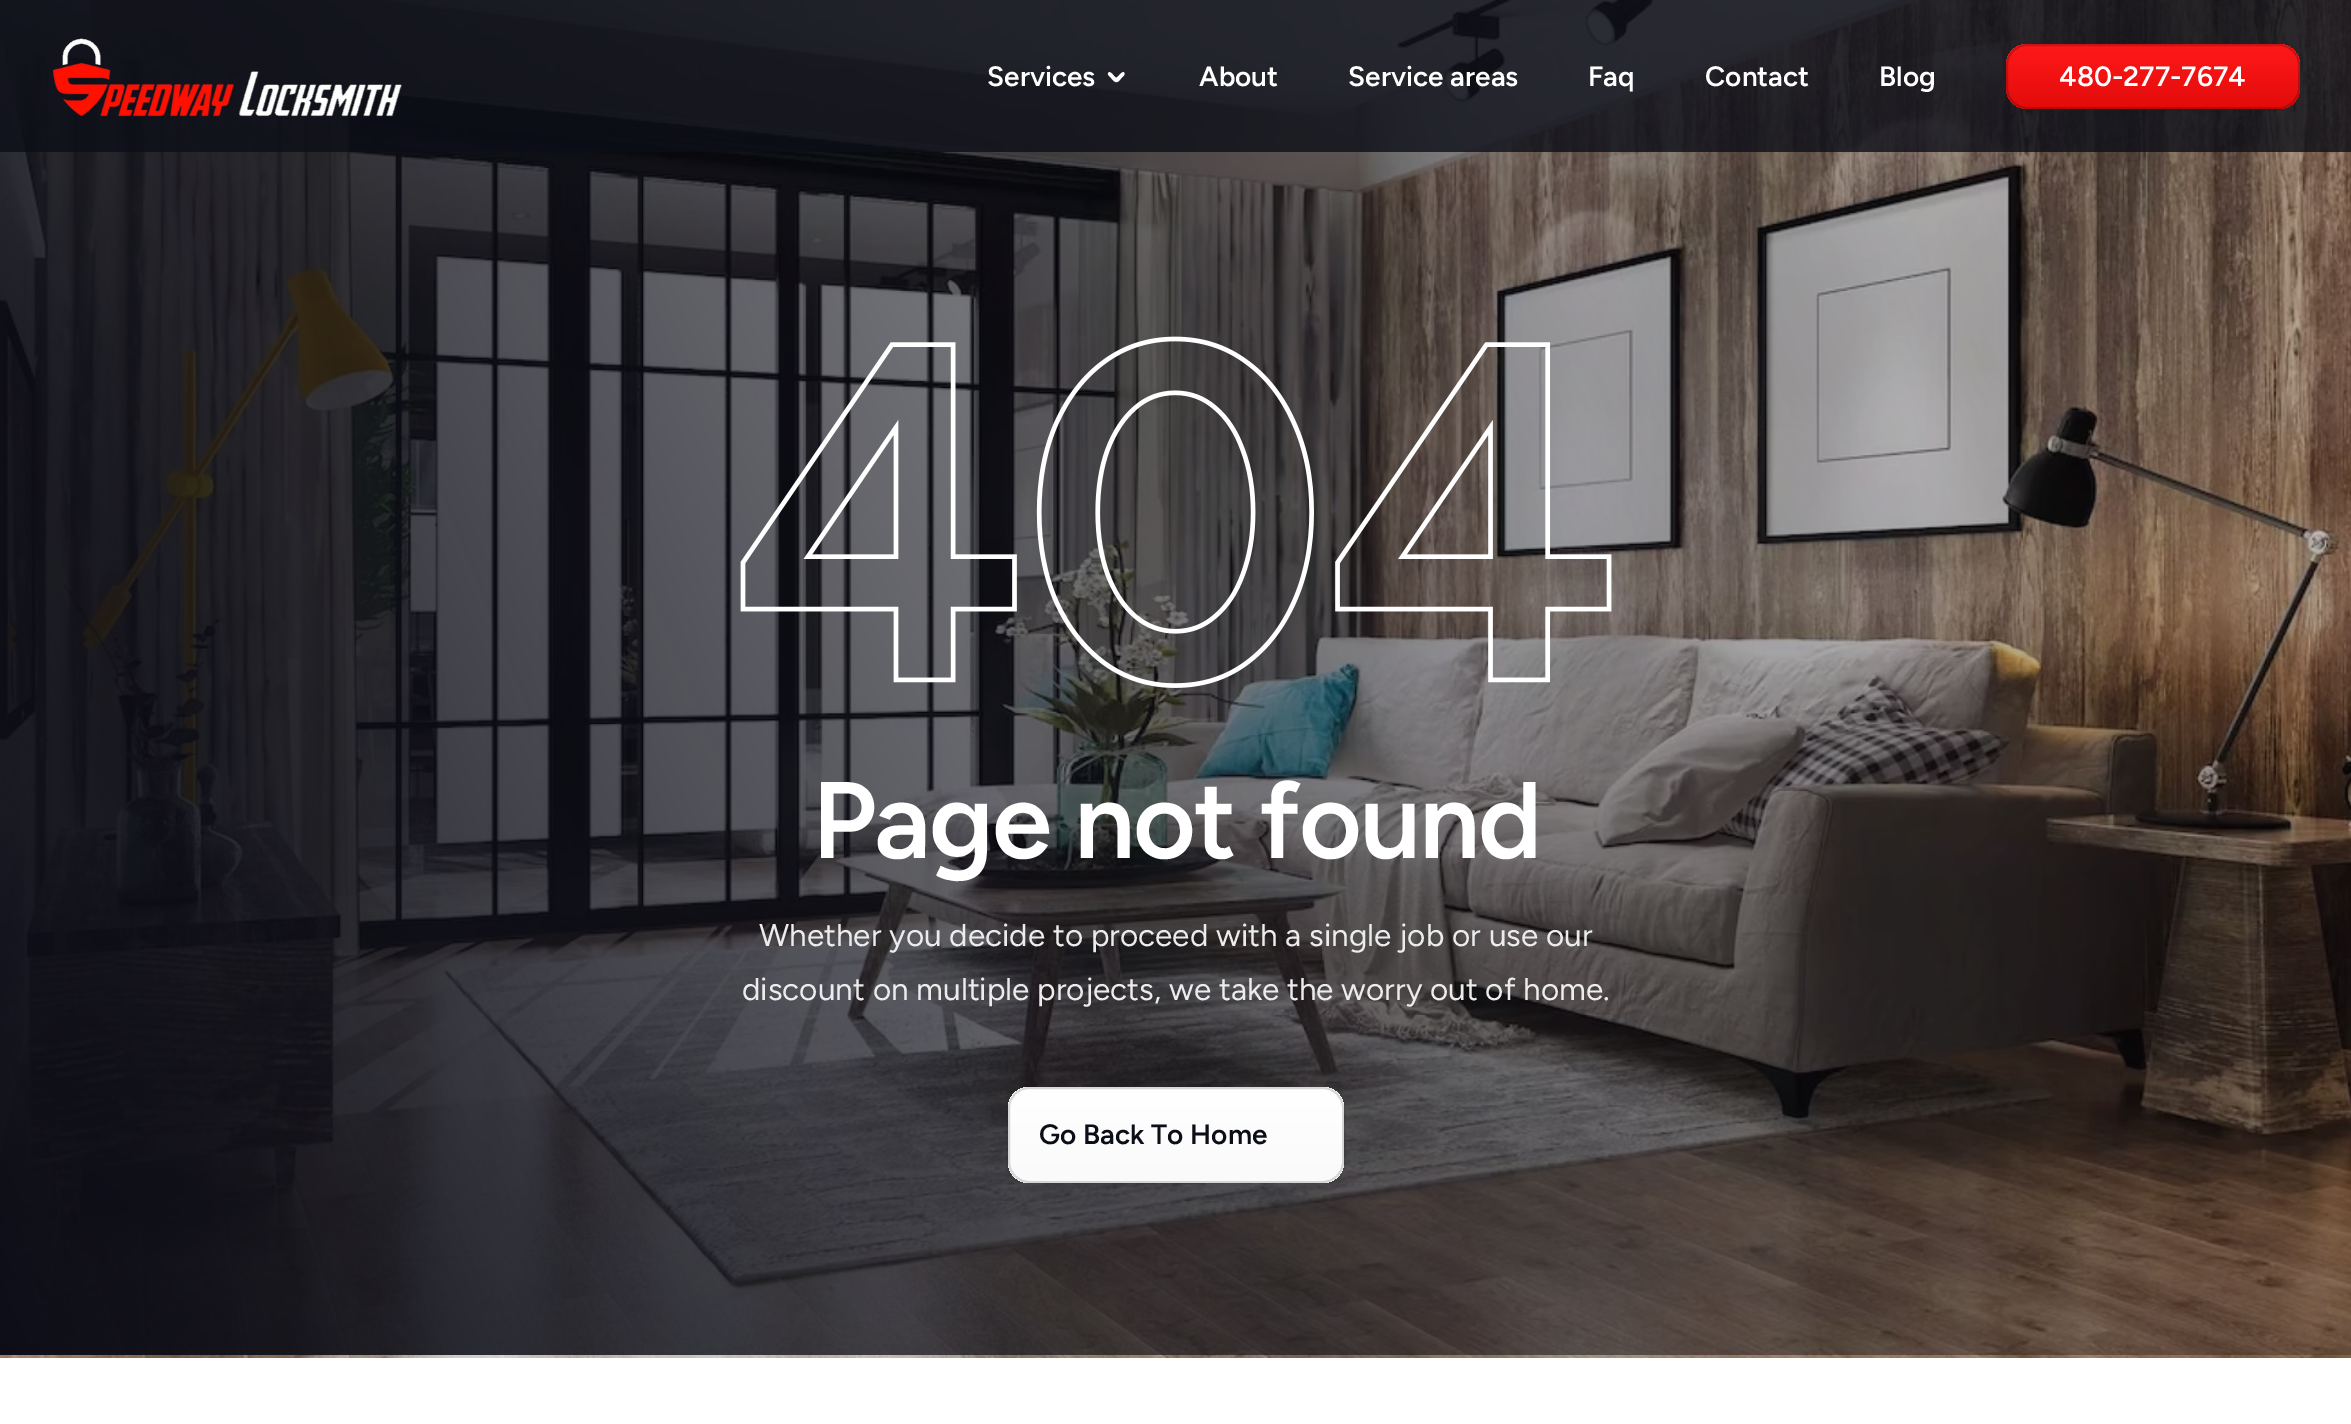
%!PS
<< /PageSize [2351 1424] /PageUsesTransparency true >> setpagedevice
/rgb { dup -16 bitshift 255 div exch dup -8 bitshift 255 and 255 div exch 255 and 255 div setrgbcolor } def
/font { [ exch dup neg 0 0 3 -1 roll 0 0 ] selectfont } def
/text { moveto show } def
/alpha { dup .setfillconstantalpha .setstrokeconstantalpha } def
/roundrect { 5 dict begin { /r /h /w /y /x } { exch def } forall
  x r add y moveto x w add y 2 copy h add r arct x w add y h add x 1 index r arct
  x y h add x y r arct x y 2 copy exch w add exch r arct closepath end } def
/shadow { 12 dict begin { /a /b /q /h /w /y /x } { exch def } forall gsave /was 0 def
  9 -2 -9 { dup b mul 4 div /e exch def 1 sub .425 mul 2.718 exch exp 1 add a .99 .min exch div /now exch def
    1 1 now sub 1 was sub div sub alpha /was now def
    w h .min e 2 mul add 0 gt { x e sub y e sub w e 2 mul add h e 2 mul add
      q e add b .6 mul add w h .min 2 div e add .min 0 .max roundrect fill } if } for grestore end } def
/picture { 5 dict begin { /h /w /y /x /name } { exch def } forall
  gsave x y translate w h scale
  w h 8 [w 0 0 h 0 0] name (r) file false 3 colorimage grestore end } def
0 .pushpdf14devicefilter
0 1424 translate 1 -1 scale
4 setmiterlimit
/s1 { /Figtree-SemiBold 28 font 16#FFFFFF rgb } def
/s2 { /Figtree-Regular 31.5 font 16#ECECEC rgb } def
/s3 { /Figtree-SemiBold 28 font 16#0C0E17 rgb } def
16#FFFFFF rgb
0 0 2351 1424 rectfill
(pic2.raw) 0 0 2351 1358 picture
0.8 alpha
16#0C0E17 rgb
0 0 2351 152 rectfill
1 alpha
(pic1.raw) 53 38 349 79 picture
s1
(Services) 987 86 text
1108.5 72.5 moveto 1110.5 71 1113 75 1114 76 curveto 1115 77 1119 79.5 1117 81.5 curveto 1115.5 83.5 1112.5 79.5 1111.5 78.5 curveto 1110.5 77 1106.5 74.5 1108.5 72.5 curveto closepath fill
1124 72.5 moveto 1126 74.5 1122 77 1121 78.5 curveto 1120 79.5 1117.5 83.5 1115.5 81.5 curveto 1113.5 79.5 1117.5 77 1118.5 76 curveto 1119.5 75 1122.5 71 1124 72.5 curveto closepath fill
(About) 1199 86 text
(Service areas) 1348 86 text
(Faq) 1588 86 text
(Contact) 1705 86 text
(Blog) 1879 86 text
gsave 2006 44 294 65 21 roundrect clip newpath
<< /ShadingType 2 /ColorSpace /DeviceRGB /Coords [2153 44 2153 109] /Extend [true true] /Function << /FunctionType 2 /Domain [0 1] /C0 [1 0.098 0.098] /C1 [0.89 0.043 0.043] /N 1 >> >> shfill grestore
0.2 alpha
16#000000 rgb
2 setlinewidth
2007 45 292 63 20 roundrect stroke
1 alpha
s1
(480-277-7674) 2059 86 text
(pic3.raw) 740 336 872 352 picture
/Figtree-SemiBold 108.5 font
812 858 moveto -2 0 (Page not found) ashow
s2
(Whether you decide to proceed with a single job or use our) 759 946 text
(discount on multiple projects, we take the worry out of home.) 742 1000 text
gsave
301 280 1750 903 rectclip
16#000000 rgb
1008 1089 336 96 21 2.5 0.15 shadow
grestore
gsave 1008 1087 336 96 21 roundrect clip newpath
<< /ShadingType 2 /ColorSpace /DeviceRGB /Coords [1176 1087 1176 1183] /Extend [true true] /Function << /FunctionType 2 /Domain [0 1] /C0 [1 1 1] /C1 [0.98 0.98 0.98] /N 1 >> >> shfill grestore
0.15 alpha
16#000000 rgb
1009 1088 334 94 20 roundrect stroke
1 alpha
s3
(Go Back To Home) 1039 1144 text
.poppdf14devicefilter showpage
